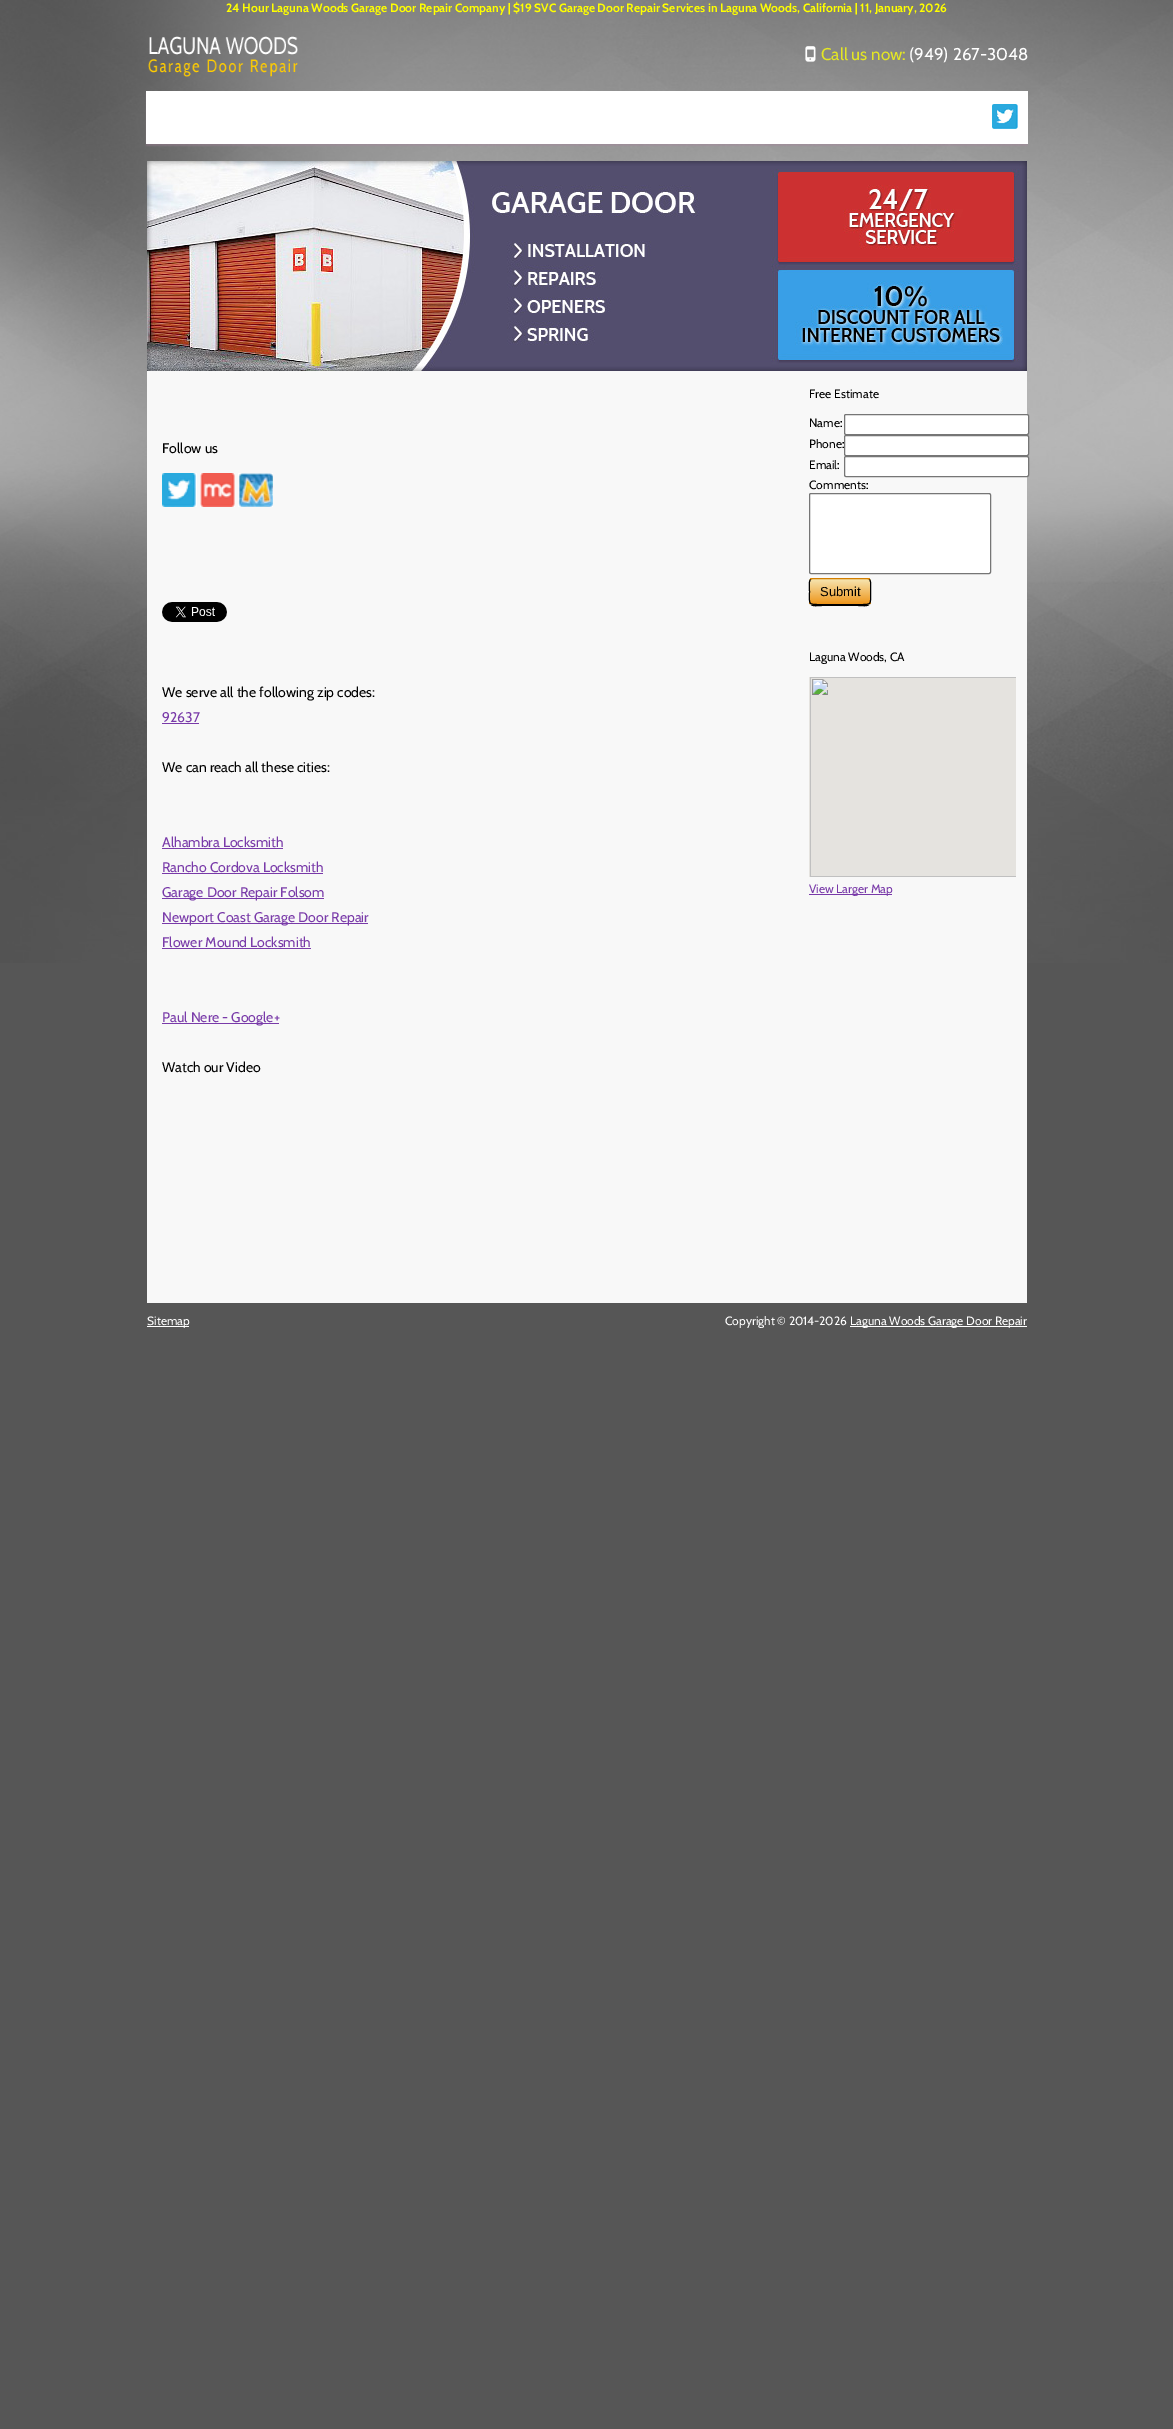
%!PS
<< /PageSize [1173 2429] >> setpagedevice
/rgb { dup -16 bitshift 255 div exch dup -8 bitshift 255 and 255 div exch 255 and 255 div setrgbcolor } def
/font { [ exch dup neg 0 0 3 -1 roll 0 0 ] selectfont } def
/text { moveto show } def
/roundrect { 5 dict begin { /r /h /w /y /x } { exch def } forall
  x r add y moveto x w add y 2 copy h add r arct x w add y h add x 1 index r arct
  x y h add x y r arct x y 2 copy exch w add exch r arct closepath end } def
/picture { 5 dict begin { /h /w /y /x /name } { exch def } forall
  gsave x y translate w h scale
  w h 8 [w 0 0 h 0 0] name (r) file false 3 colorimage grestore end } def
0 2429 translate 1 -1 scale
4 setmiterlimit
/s1 { /Cabin-Bold 12 font 16#FFFF00 rgb } def
/s2 { /Cabin-Regular 17 font 16#E4E624 rgb } def
/s3 { /Cabin-Regular 17 font 16#FFFFFF rgb } def
/s4 { /Cabin-Regular 14 font 16#000000 rgb } def
/s5 { /Cabin-Regular 14 font 16#793AA9 rgb } def
/s6 { /Cabin-Regular 12 font 16#000000 rgb } def
/s7 { /LiberationSans-Regular 13 font 16#000000 rgb } def
/s8 { /Cabin-Regular 12 font 16#793AA9 rgb } def
/s9 { /Cabin-Regular 12 font 16#FFFFFF rgb } def
16#565656 rgb
0 0 1173 2429 rectfill
(pic1.raw) 0 0 1173 963 picture
s1
(24 Hour Laguna Woods Garage Door Repair Company | $19 SVC Garage Door Repair Services in Laguna Woods, California | 11, January, 2026) 226 12 text
(pic2.raw) 148 36 150 41 picture
(pic3.raw) 805 46 11 16 picture
s2
(Call us now:) 821 60 text
s3
(\(949\) 267-3048) 909 60 text
(pic4.raw) 145 91 883 56 picture
(pic5.raw) 992 104 26 25 picture
(pic6.raw) 147 161 880 210 picture
16#F8F8F8 rgb
147 371 880 932 rectfill
s4
(Follow us) 162 453 text
(pic7.raw) 162 473 35 34 picture
(pic8.raw) 200 473 35 34 picture
(pic9.raw) 238 473 35 34 picture
(pic10.raw) 162 602 65 20 picture
(We serve all the following zip codes:) 162 697 text
s5
(92637) 162 722 text
162 723 37 1 rectfill
s4
(We can reach all these cities:) 162 772 text
s5
(Alhambra Locksmith) 162 847 text
162 848 121 1 rectfill
(Rancho Cordova Locksmith) 162 872 text
162 873 161 1 rectfill
162 898 162 1 rectfill
(Garage Door Repair Folsom) 162 897 text
162 923 206 1 rectfill
(Newport Coast Garage Door Repair) 162 922 text
(Flower Mound Locksmith) 162 947 text
162 948 149 1 rectfill
162 1023 117 1 rectfill
(Paul Nere - Google+) 162 1022 text
s4
(Watch our Video) 162 1072 text
s6
(Free Estimate) 809 398 text
(Name:) 809 427 text
16#FFFFFF rgb
844.5 414.5 184 20 1.5 roundrect gsave fill grestore
16#767676 rgb
stroke
s6
(Phone:) 809 448 text
16#FFFFFF rgb
844.5 435.5 184 20 1.5 roundrect gsave fill grestore
16#767676 rgb
stroke
s6
(Email:) 809 469 text
16#FFFFFF rgb
844.5 456.5 184 20 1.5 roundrect gsave fill grestore
16#767676 rgb
stroke
s6
(Comments:) 809 489 text
16#FFFFFF rgb
809.5 493.5 181 80 1.5 roundrect gsave fill grestore
16#767676 rgb
stroke
16#000000 rgb
809 601 moveto 809 608 817 606 822 606 curveto 858 606 lineto 863 606 871 608 871 601 curveto 871 603 869 605 867 605 curveto 813 605 lineto 811 605 809 603 809 601 curveto closepath fill
gsave
809 578 62 27 4 roundrect clip newpath
gsave 809 578 moveto 871 578 lineto 871 579 lineto 809 579 lineto closepath clip newpath
<< /ShadingType 2 /ColorSpace /DeviceRGB /Coords [840 554 840 579] /Extend [true true] /Function << /FunctionType 2 /Domain [0 1] /C0 [0.965 0.898 0.694] /C1 [0.933 0.588 0.106] /N 1 >> >> shfill grestore
gsave 809 579 moveto 871 579 lineto 871 604 lineto 809 604 lineto closepath clip newpath
<< /ShadingType 2 /ColorSpace /DeviceRGB /Coords [840 579 840 604] /Extend [true true] /Function << /FunctionType 2 /Domain [0 1] /C0 [0.965 0.898 0.694] /C1 [0.933 0.588 0.106] /N 1 >> >> shfill grestore
gsave 809 604 moveto 871 604 lineto 871 605 lineto 809 605 lineto closepath clip newpath
<< /ShadingType 2 /ColorSpace /DeviceRGB /Coords [840 604 840 629] /Extend [true true] /Function << /FunctionType 2 /Domain [0 1] /C0 [0.965 0.898 0.694] /C1 [0.933 0.588 0.106] /N 1 >> >> shfill grestore
grestore
16#D27E00 rgb
810.5 579.5 moveto 812.5 578.5 lineto 867.5 578.5 lineto 869.5 579.5 lineto stroke
16#000000 rgb
869.5 579.5 moveto 871.5 581.5 870.5 589 870.5 591.5 curveto 870.5 605.5 872.5 604.5 858 604.5 curveto 822 604.5 lineto 807.5 604.5 809.5 605.5 809.5 591.5 curveto 809.5 589 808.5 581.5 810.5 579.5 curveto stroke
s7
(Submit) 820 596 text
s6
(Laguna Woods, CA) 809 661 text
(pic11.raw) 809 677 207 200 picture
16#793AA9 rgb
809 894 83 1 rectfill
(View Larger Map) 809 893 text
16#FFFFFF rgb
147 1326 42 1 rectfill
(Sitemap) 147 1325 text
(Copyright © 2014-2026) 725 1325 text
850 1326 177 1 rectfill
(Laguna Woods Garage Door Repair) 850 1325 text
showpage
